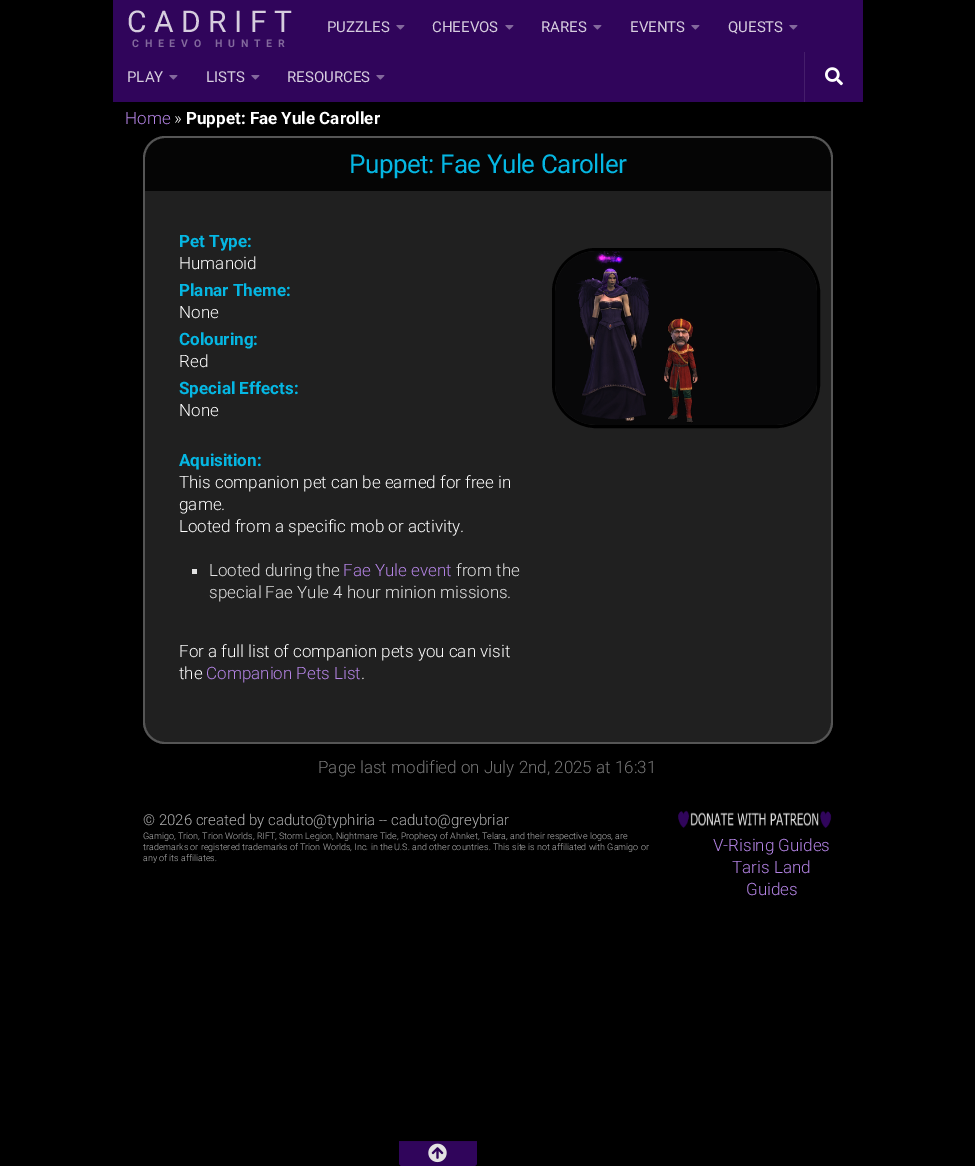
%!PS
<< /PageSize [975 1166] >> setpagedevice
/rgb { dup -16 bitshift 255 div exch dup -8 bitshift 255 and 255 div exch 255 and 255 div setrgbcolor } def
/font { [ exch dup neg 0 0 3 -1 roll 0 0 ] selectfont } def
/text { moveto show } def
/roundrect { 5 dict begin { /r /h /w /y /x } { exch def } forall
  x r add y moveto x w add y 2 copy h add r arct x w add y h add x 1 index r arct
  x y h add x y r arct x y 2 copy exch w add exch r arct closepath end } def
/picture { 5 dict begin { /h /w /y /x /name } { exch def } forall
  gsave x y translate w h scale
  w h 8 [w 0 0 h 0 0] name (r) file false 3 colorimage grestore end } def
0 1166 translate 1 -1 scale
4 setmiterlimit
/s1 { /Roboto-Regular 15 font 16#D6CDDE rgb } def
/s2 { /Roboto-Light 17 font 16#B484E5 rgb } def
/s3 { /Roboto-Light 17 font 16#FFFFFF rgb } def
/s4 { /Roboto-Bold 17 font 16#FFFFFF rgb } def
/s5 { /Roboto-Bold 17 font 16#05B7E3 rgb } def
/s6 { /Roboto-Light 17 font 16#E2E2E2 rgb } def
/s7 { /Roboto-Light 17 font 16#777777 rgb } def
/s8 { /Roboto-Light 15 font 16#B3B3B3 rgb } def
/s9 { /Roboto-Light 9 font 16#B3B3B3 rgb } def
16#000000 rgb
0 0 975 1166 rectfill
16#30055B rgb
113 0 750 102 rectfill
/Roboto-Regular 30 font
16#D6CDDE rgb
127 32 moveto 7.5 0 (CADRIFT) ashow
/Roboto-Bold 10.5 font
16#83699D rgb
132 47 moveto 5.75 0 (CHEEVO HUNTER) ashow
s1
(PUZZLES) 327 32 text
(pic1.raw) 396 25 9 5 picture
(CHEEVOS) 432 32 text
(pic1.raw) 505 25 9 5 picture
(RARES) 541 32 text
(pic1.raw) 593 25 9 5 picture
(EVENTS) 630 32 text
(pic1.raw) 691 25 9 5 picture
(QUESTS) 728 32 text
(pic1.raw) 789 25 9 5 picture
(PLAY) 127 82 text
(pic1.raw) 169 75 9 5 picture
(LISTS) 206 82 text
(pic1.raw) 251 75 9 5 picture
(RESOURCES) 287 82 text
(pic1.raw) 376 75 9 5 picture
16#451E6B rgb
804 52 1 50 rectfill
(pic2.raw) 825 67 18 19 picture
s2
(Home) 125 124 text
s3
(») 174 124 text
s4
(Puppet: Fae Yule Caroller) 186 124 text
16#050505 rgb
165 138 moveto 811 138 lineto 822 138 831 147 831 158 curveto 831 191 lineto 145 191 lineto 145 158 lineto 145 147 154 138 165 138 curveto closepath fill
16#555555 rgb
165 136 moveto 811 136 lineto 823 136 833 146 833 158 curveto 833 191 lineto 143 191 lineto 143 158 lineto 143 146 153 136 165 136 curveto closepath 165 138 moveto 811 138 lineto 822 138 831 147 831 158 curveto 831 191 lineto 145 191 lineto 145 158 lineto 145 147 154 138 165 138 curveto closepath eofill
/Roboto-Regular 26 font
16#05B7E3 rgb
349 173 moveto -0.5 0 (Puppet: Fae Yule Caroller) ashow
16#202020 rgb
143 191 moveto 833 191 lineto 833 722 lineto 833 734 823 744 811 744 curveto 165 744 lineto 153 744 143 734 143 722 curveto closepath fill
16#555555 rgb
143 191 moveto 833 191 lineto 833 722 lineto 833 734 823 744 811 744 curveto 165 744 lineto 153 744 143 734 143 722 curveto closepath 145 191 moveto 831 191 lineto 831 722 lineto 831 733 822 742 811 742 curveto 165 742 lineto 154 742 145 733 145 722 curveto closepath eofill
s5
(Pet Type:) 179 247 text
s3
(Humanoid) 179 269 text
s5
(Planar Theme:) 179 296 text
s3
(None) 179 318 text
s5
(Colouring:) 179 345 text
s3
(Red) 179 367 text
s5
(Special Effects:) 179 394 text
s3
(None) 179 416 text
s5
(Aquisition:) 179 466 text
s3
(This companion pet can be earned for free in) 179 488 text
(game.) 179 510 text
(Looted from a specific mob or activity.) 179 532 text
16#E2E2E2 rgb
192 569 5 5 rectfill
(Looted during the) 209 576 text
s2
(Fae Yule event) 343 576 text
s6
(from the) 456 576 text
(special Fae Yule 4 hour minion missions.) 209 598 text
s3
(For a full list of companion pets you can visit) 179 657 text
(the) 179 679 text
s2
(Companion Pets List) 206 679 text
s3
(.) 361 679 text
16#000000 rgb
3 setlinewidth
553.5 249.5 265 177 42.5 roundrect stroke
(pic3.raw) 555 251 262 174 picture
s7
(Page last modified on July 2nd, 2025 at 16:31) 318 773 text
s8
(© 2026 created by caduto@typhiria -- caduto@greybriar) 143 825 text
s9
(Gamigo, Trion, Trion Worlds, RIFT, Storm Legion, Nightmare Tide, Prophecy of Ahnket, Telara, and their respective logos, are) 143 839 text
(trademarks or registered trademarks of Trion Worlds, Inc. in the U.S. and other countries. This site is not affiliated with Gamigo or) 143 850 text
(any of its affiliates.) 143 861 text
(pic4.raw) 678 810 154 18 picture
s2
(V-Rising Guides) 713 851 text
(Taris Land) 732 873 text
(Guides) 746 895 text
16#30055B rgb
399 1141 moveto 477 1141 lineto 477 1163 lineto 477 1164.5 475.5 1166 474 1166 curveto 402 1166 lineto 400.5 1166 399 1164.5 399 1163 curveto closepath fill
16#2E0556 rgb
399 1141 78 1 rectfill
(pic5.raw) 428 1143 19 20 picture
showpage
